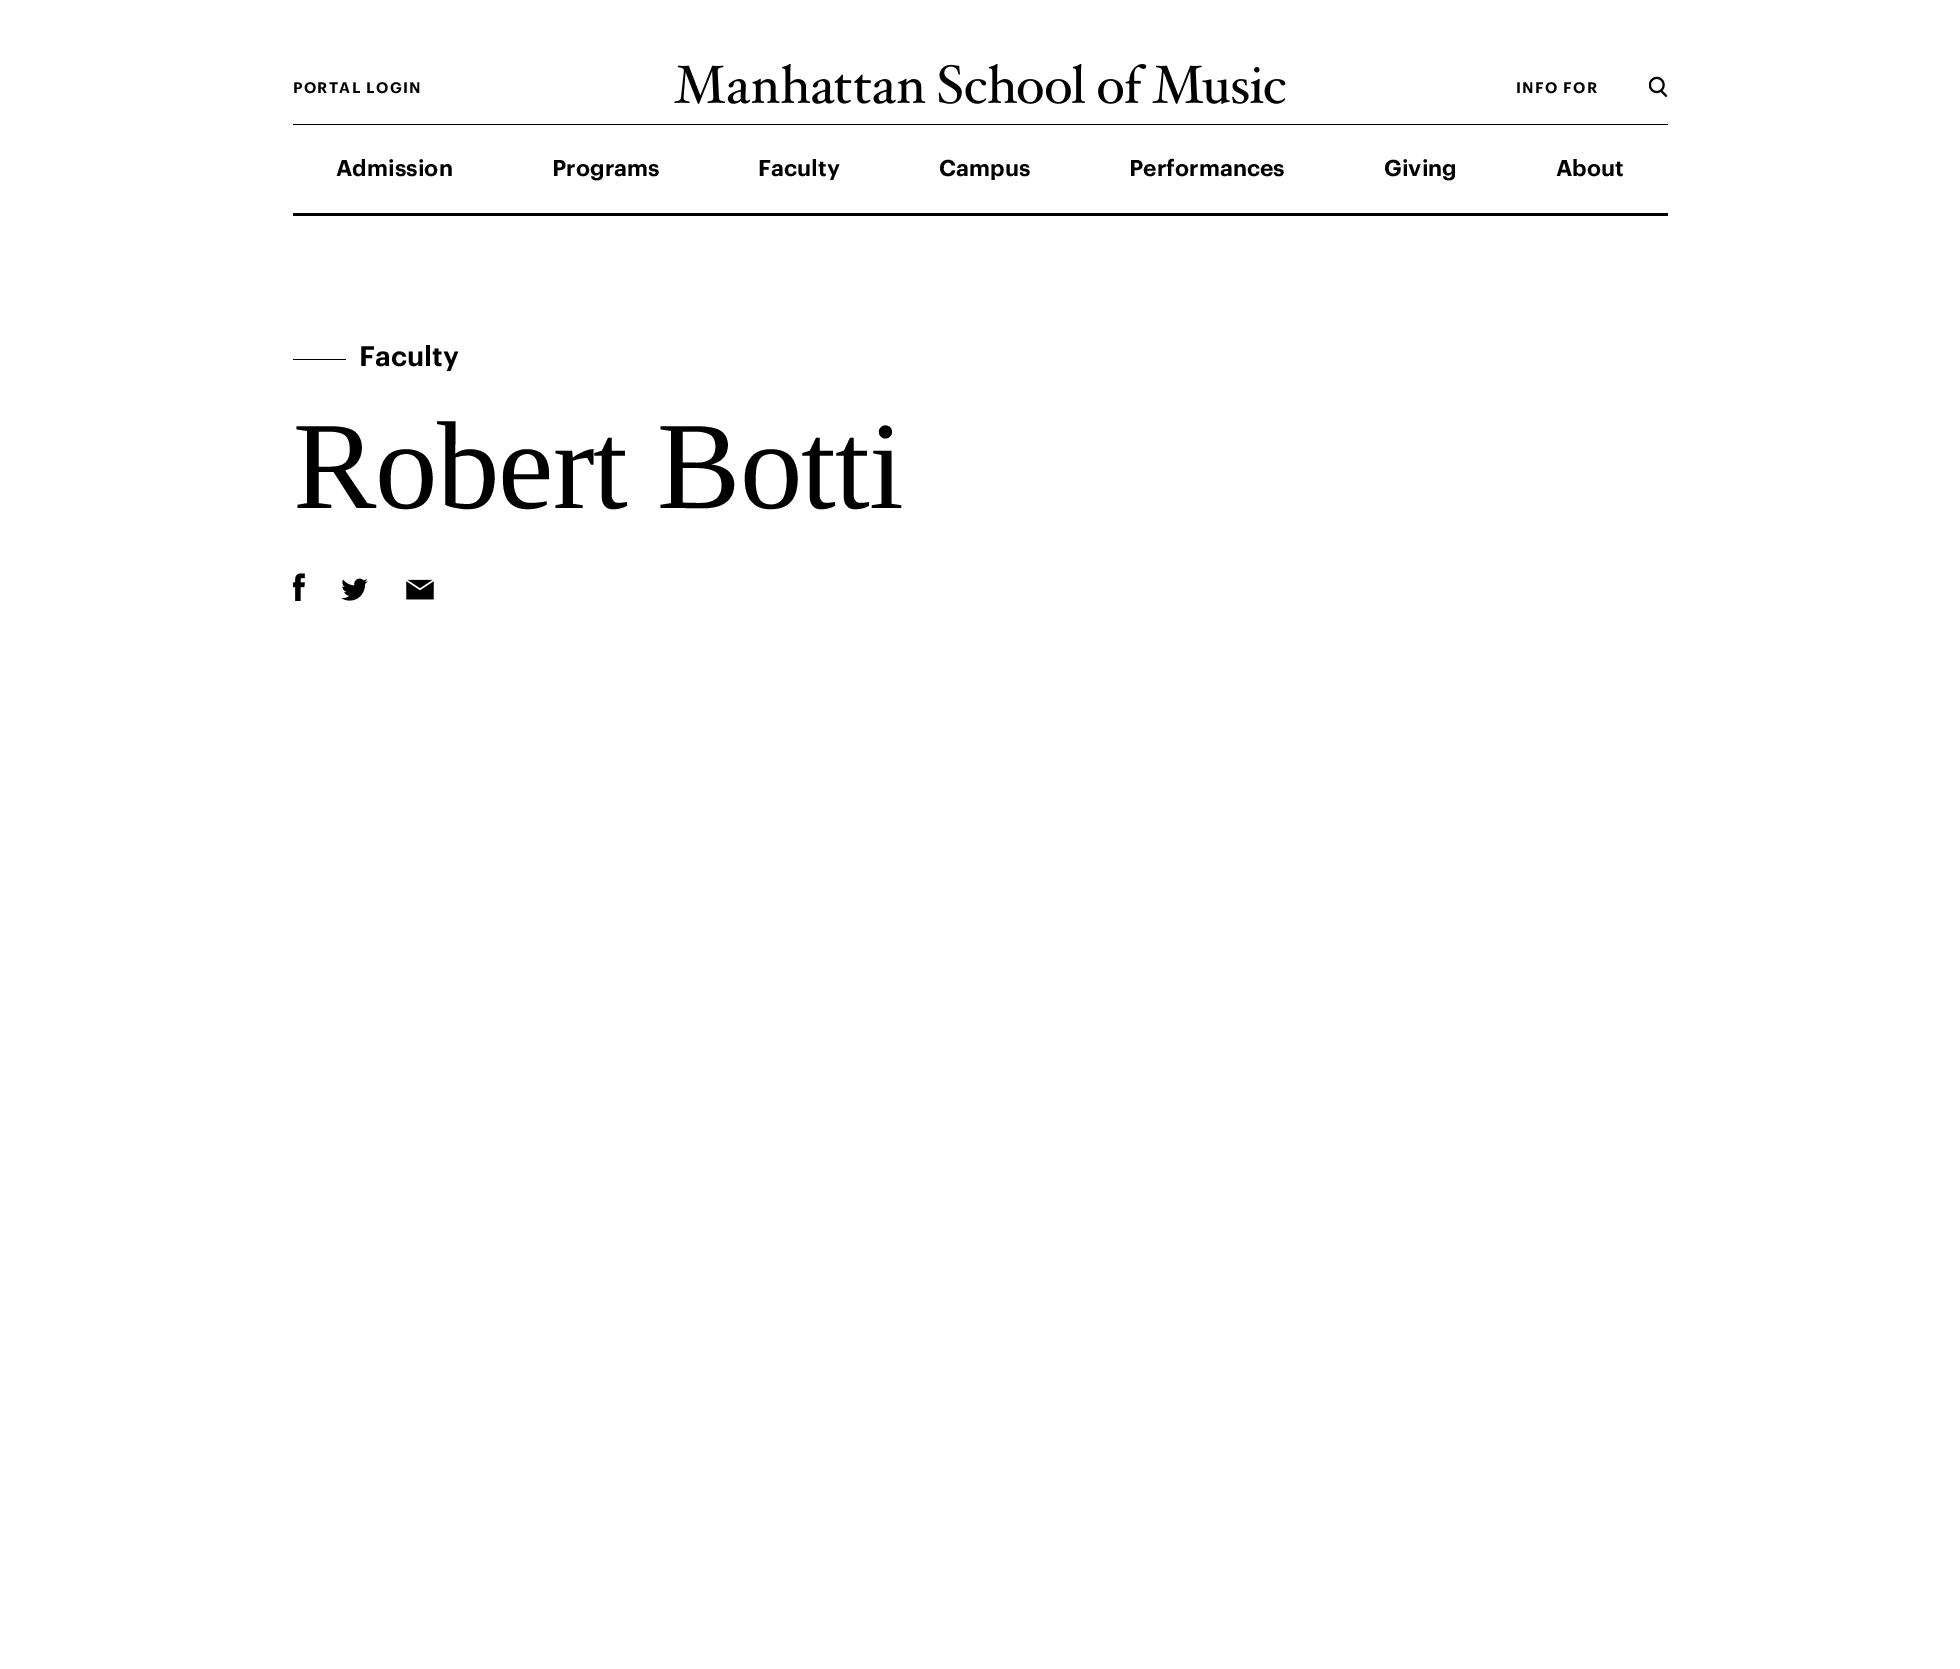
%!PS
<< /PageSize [1960 1669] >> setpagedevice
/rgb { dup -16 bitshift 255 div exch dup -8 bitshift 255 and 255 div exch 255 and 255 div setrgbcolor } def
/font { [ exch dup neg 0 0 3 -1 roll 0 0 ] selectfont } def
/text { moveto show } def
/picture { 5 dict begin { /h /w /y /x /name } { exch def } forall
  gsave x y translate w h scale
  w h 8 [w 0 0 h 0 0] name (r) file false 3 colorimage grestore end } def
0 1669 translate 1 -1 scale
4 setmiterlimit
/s1 { /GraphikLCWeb-SemiBold 22.5 font 16#000000 rgb } def
/s2 { /GraphikLCWeb-SemiBold 27.5 font 16#000000 rgb } def
16#FFFFFF rgb
0 0 1960 1669 rectfill
16#000000 rgb
293 124 1375 1 rectfill
(pic1.raw) 674 64 612 40 picture
(pic2.raw) 1649 76 19 21 picture
293 213 1375 3 rectfill
/GraphikLCWeb-SemiBold 15 font
293 93 moveto 1.25 0 (PORTAL LOGIN) ashow
1516 93 moveto 1.25 0 (INFO FOR) ashow
s1
(Admission) 336 176 text
(Programs) 552 176 text
(Faculty) 758 176 text
(Campus) 939 176 text
(Performances) 1129 176 text
(Giving) 1384 176 text
(About) 1556 176 text
293 359 53 1 rectfill
s2
(Faculty) 359 366 text
/LiberationSerif-Regular 125 font
293 508 moveto -1 0 (Robert Botti) ashow
(pic3.raw) 293 573 12 28 picture
(pic4.raw) 341 578 27 23 picture
(pic5.raw) 406 579 28 21 picture
showpage
